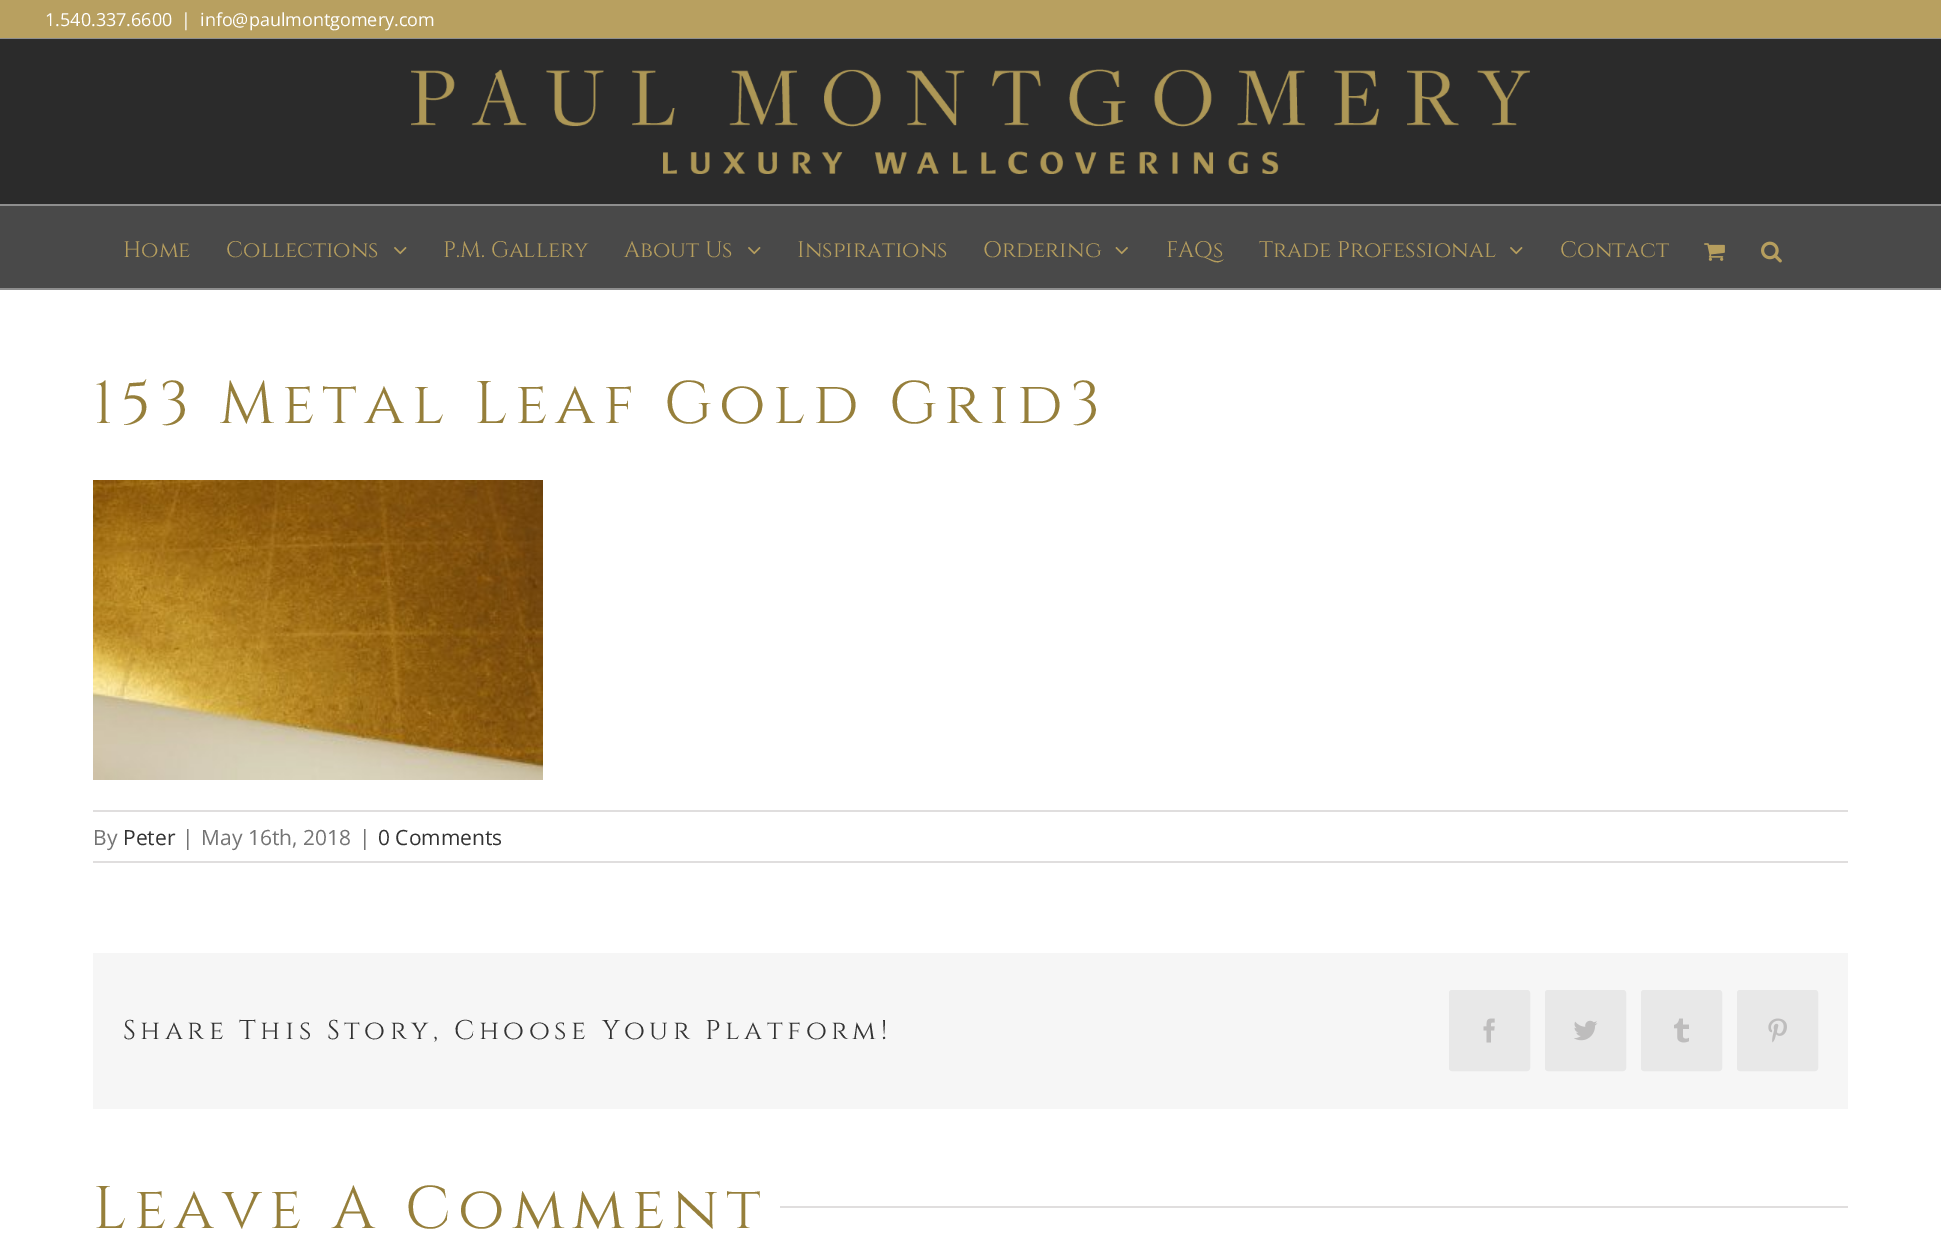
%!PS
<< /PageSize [1941 1244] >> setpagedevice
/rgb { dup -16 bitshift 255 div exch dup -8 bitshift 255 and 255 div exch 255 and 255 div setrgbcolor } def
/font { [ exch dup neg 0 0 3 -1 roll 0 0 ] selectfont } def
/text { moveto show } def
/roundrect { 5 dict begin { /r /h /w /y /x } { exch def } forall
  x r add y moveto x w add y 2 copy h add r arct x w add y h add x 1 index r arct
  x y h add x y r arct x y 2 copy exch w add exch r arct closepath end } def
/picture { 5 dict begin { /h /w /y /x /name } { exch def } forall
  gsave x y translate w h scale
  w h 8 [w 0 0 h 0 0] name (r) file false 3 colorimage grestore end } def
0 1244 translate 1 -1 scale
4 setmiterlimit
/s1 { /OpenSans-Regular 18 font 16#FFFFFF rgb } def
/s2 { /Cinzel-Regular 22.5 font 16#B69E5E rgb } def
/s3 { /OpenSans-Regular 21 font 16#747474 rgb } def
/s4 { /OpenSans-Regular 21 font 16#333333 rgb } def
16#FFFFFF rgb
0 0 1941 1244 rectfill
16#B8A060 rgb
0 0 1941 38 rectfill
16#8E8E8E rgb
0 38 1941 1 rectfill
s1
(1.540.337.6600) 45 26 text
(|) 181 26 text
(info@paulmontgomery.com) 200 26 text
16#2B2B2B rgb
0 39 1941 165 rectfill
16#8E8E8E rgb
0 204 1941 2 rectfill
(pic1.raw) 411 69 1119 105 picture
16#494949 rgb
0 206 1941 82 rectfill
16#8E8E8E rgb
0 288 1941 2 rectfill
s2
(Home) 123 257 text
(Collections) 226 257 text
(pic2.raw) 394 247 13 8 picture
(P.M. Gallery) 443 257 text
(About Us) 624 257 text
(pic2.raw) 748 247 13 8 picture
(Inspirations) 797 257 text
(Ordering) 983 257 text
(pic3.raw) 1115 247 13 8 picture
(FAQs) 1166 257 text
(Trade Professional) 1259 257 text
(pic2.raw) 1510 247 13 8 picture
(Contact) 1560 257 text
(pic4.raw) 1704 243 21 18 picture
(pic5.raw) 1761 241 21 22 picture
/Cinzel-Regular 60 font
16#967F3B rgb
93 423 moveto 7.5 0 (153 Metal Leaf Gold Grid3) ashow
(pic6.raw) 93 480 450 300 picture
16#E0DEDE rgb
93 810 1755 2 rectfill
93 861 1755 2 rectfill
s3
(By) 93 845 text
s4
(Peter) 123 845 text
s3
(|) 182 845 text
(May 16th, 2018) 201 845 text
(|) 359 845 text
s4
(0 Comments) 378 845 text
16#F6F6F6 rgb
93 953 1755 156 rectfill
/Cinzel-Regular 27 font
16#333333 rgb
123 1039 moveto 4.5 0 (Share This Story, Choose Your Platform!) ashow
16#E8E8E8 rgb
1450 991 79 79 2 roundrect gsave fill grestore
2 setlinewidth
stroke
(pic7.raw) 1483 1018 12 25 picture
1546 991 79 79 2 roundrect gsave fill grestore
stroke
(pic8.raw) 1574 1020 24 21 picture
1642 991 79 79 2 roundrect gsave fill grestore
stroke
(pic9.raw) 1674 1018 15 25 picture
1738 991 79 79 2 roundrect gsave fill grestore
stroke
(pic10.raw) 1768 1018 19 25 picture
/Cinzel-Regular 60 font
16#967F3B rgb
93 1228 moveto 7.5 0 (Leave A Comment) ashow
16#E0DEDE rgb
780 1206 1068 2 rectfill
showpage
